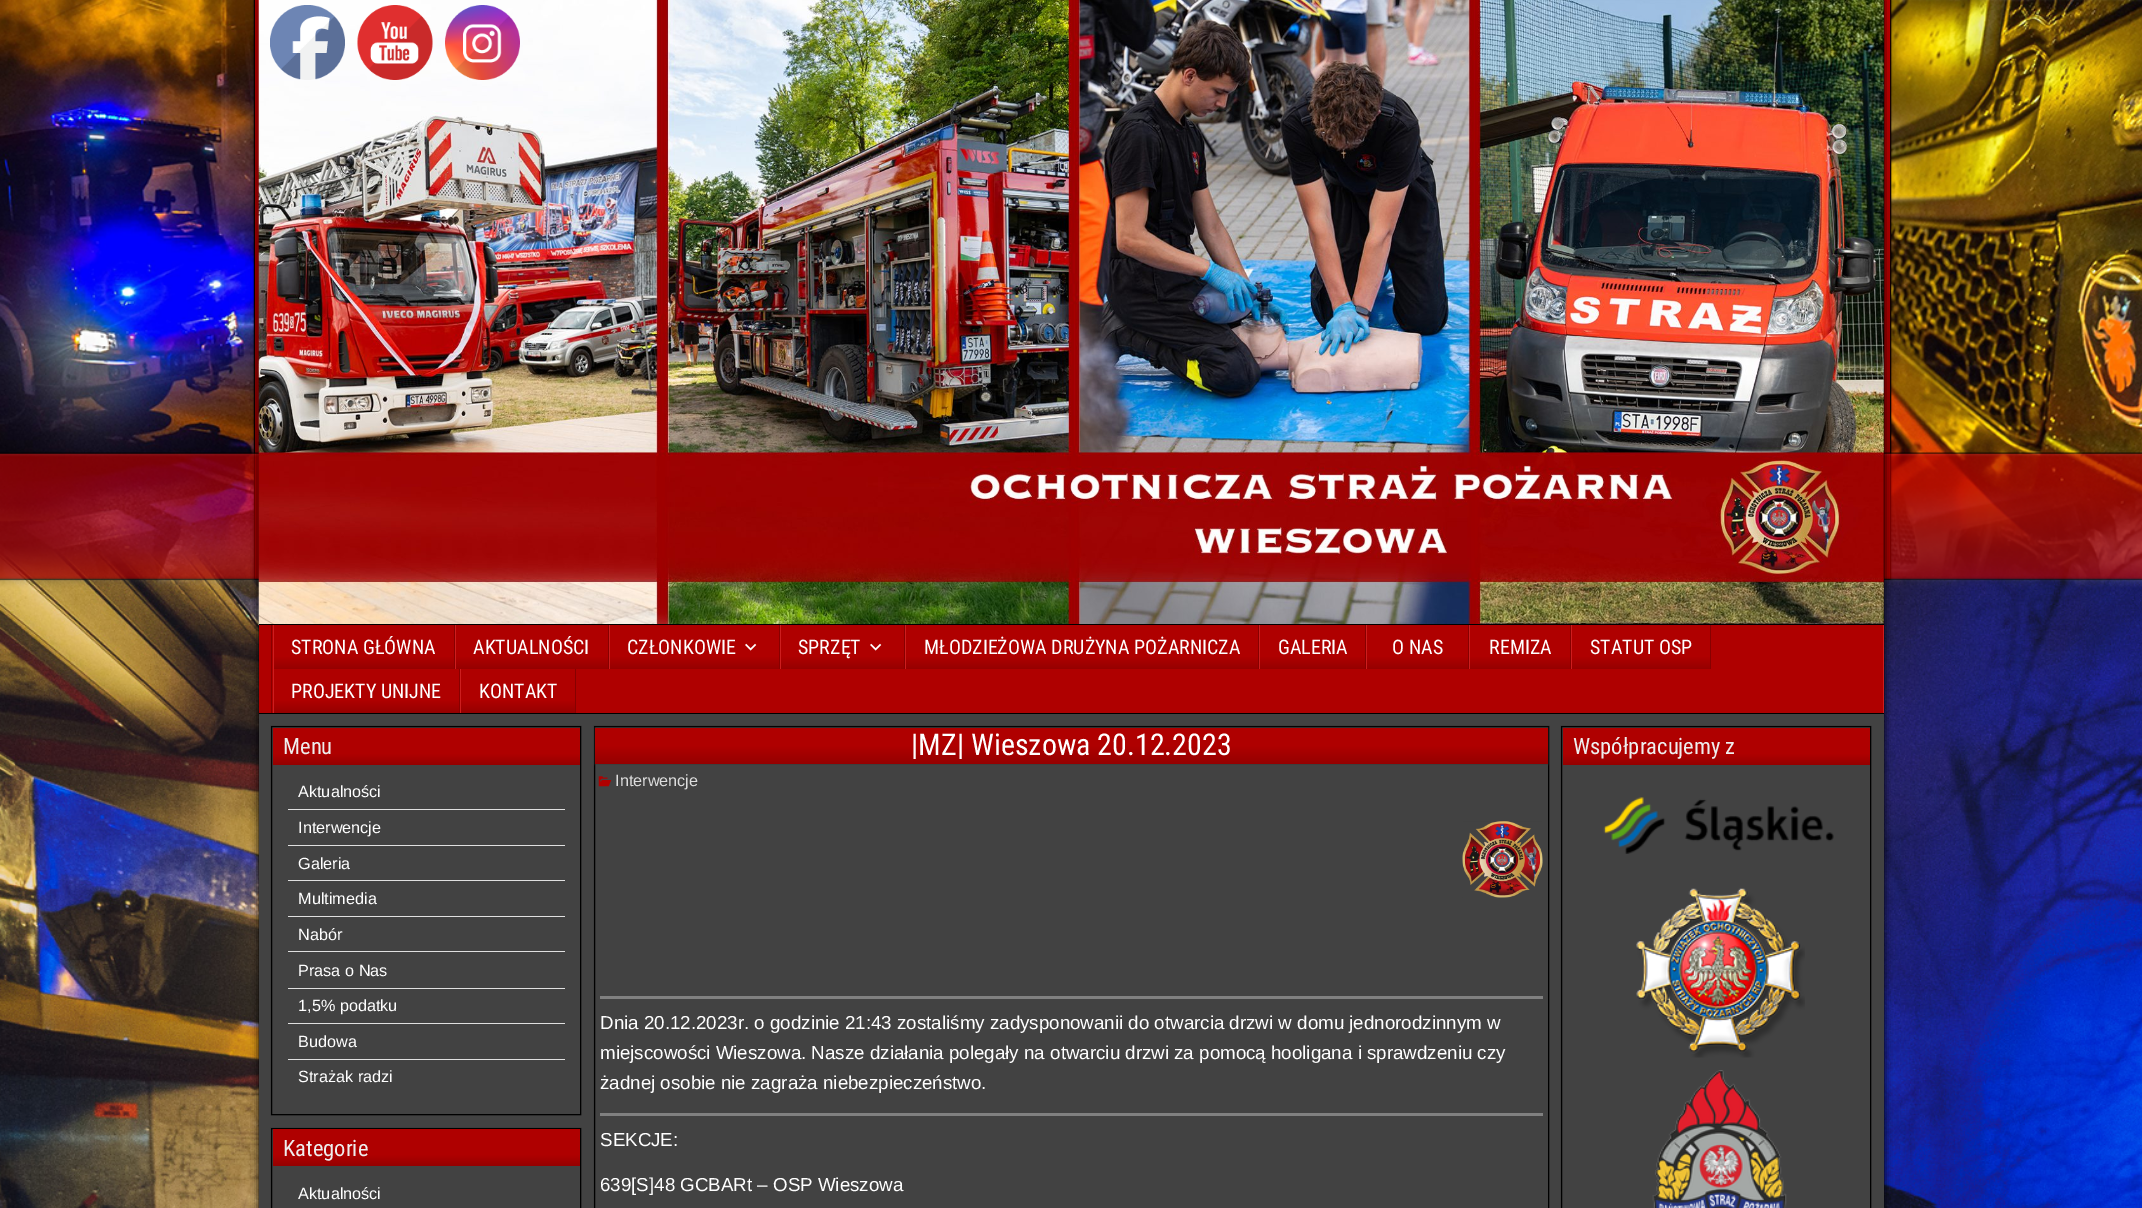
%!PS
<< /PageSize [2142 1208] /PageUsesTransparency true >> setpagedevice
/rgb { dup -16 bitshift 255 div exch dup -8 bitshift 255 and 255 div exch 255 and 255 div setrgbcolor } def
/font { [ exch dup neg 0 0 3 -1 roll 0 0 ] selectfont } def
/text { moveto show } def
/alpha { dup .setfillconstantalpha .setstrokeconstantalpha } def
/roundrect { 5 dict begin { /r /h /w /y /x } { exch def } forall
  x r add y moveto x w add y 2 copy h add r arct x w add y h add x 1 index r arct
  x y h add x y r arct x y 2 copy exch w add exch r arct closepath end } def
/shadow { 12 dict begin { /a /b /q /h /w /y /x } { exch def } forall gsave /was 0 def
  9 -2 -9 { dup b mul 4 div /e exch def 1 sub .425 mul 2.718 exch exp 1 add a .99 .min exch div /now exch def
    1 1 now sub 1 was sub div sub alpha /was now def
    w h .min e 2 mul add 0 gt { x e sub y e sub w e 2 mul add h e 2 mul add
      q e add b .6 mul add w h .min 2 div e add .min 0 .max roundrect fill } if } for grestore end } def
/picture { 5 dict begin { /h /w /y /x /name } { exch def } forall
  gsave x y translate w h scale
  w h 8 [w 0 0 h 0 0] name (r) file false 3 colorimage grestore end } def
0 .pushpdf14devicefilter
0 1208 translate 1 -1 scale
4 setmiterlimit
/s1 { /RobotoCondensed-Regular 20 font 16#FFFFFF rgb } def
/s2 { /RobotoCondensed-Regular 22.5 font 16#EEEEEE rgb } def
/s3 { /LiberationSans-Regular 16.25 font 16#FFFFFF rgb } def
/s4 { /RobotoCondensed-Regular 30 font 16#FFFFFF rgb } def
/s5 { /LiberationSans-Regular 16.25 font 16#DDDDDD rgb } def
/s6 { /Arimo-Regular 18.75 font 16#FFFFFF rgb } def
16#FFFFFF rgb
0 0 2142 1208 rectfill
(pic1.raw) 0 0 2142 1208 picture
16#000000 rgb
259 0 1625 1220 0 4 1 shadow
(pic2.raw) 258 0 1626 625 picture
259 624 1625 1 rectfill
(pic3.raw) 270 5 75 75 picture
(pic4.raw) 357 5 76 75 picture
(pic5.raw) 445 5 75 75 picture
16#AF0000 rgb
259 625 1624 88 rectfill
16#000000 rgb
259 713 1625 1 rectfill
16#CD1E1E rgb
1883 625 1 88 rectfill
16#870000 rgb
271 625 1 88 rectfill
gsave 274 657 moveto 454 657 lineto 454 669 lineto 274 669 lineto closepath clip newpath
<< /ShadingType 2 /ColorSpace /DeviceRGB /Coords [364 625 364 669] /Extend [true true] /Function << /FunctionType 3 /Domain [0 1] /Functions [<< /FunctionType 2 /Domain [0 1] /C0 [0.686 0 0] /C1 [0.686 0 0] /N 1 >> << /FunctionType 2 /Domain [0 1] /C0 [0.686 0 0] /C1 [0.584 0 0] /N 1 >>] /Bounds [0.7] /Encode [0 1 0 1] >> >> shfill grestore
454 625 1 44 rectfill
16#CD1E1E rgb
273 625 1 88 rectfill
s1
(STRONA GŁÓWNA) 291 654 text
gsave 456 657 moveto 608 657 lineto 608 669 lineto 456 669 lineto closepath clip newpath
<< /ShadingType 2 /ColorSpace /DeviceRGB /Coords [532 625 532 669] /Extend [true true] /Function << /FunctionType 3 /Domain [0 1] /Functions [<< /FunctionType 2 /Domain [0 1] /C0 [0.686 0 0] /C1 [0.686 0 0] /N 1 >> << /FunctionType 2 /Domain [0 1] /C0 [0.686 0 0] /C1 [0.584 0 0] /N 1 >>] /Bounds [0.7] /Encode [0 1 0 1] >> >> shfill grestore
16#870000 rgb
608 625 1 44 rectfill
16#CD1E1E rgb
455 625 1 44 rectfill
s1
(AKTUALNOŚCI) 473 654 text
gsave 610 657 moveto 779 657 lineto 779 669 lineto 610 669 lineto closepath clip newpath
<< /ShadingType 2 /ColorSpace /DeviceRGB /Coords [694 625 694 669] /Extend [true true] /Function << /FunctionType 3 /Domain [0 1] /Functions [<< /FunctionType 2 /Domain [0 1] /C0 [0.686 0 0] /C1 [0.686 0 0] /N 1 >> << /FunctionType 2 /Domain [0 1] /C0 [0.686 0 0] /C1 [0.584 0 0] /N 1 >>] /Bounds [0.7] /Encode [0 1 0 1] >> >> shfill grestore
16#870000 rgb
779 625 1 44 rectfill
16#CD1E1E rgb
609 625 1 44 rectfill
s1
(CZŁONKOWIE) 627 654 text
(pic6.raw) 745 643 12 8 picture
gsave 781 657 moveto 904 657 lineto 904 669 lineto 781 669 lineto closepath clip newpath
<< /ShadingType 2 /ColorSpace /DeviceRGB /Coords [843 625 843 669] /Extend [true true] /Function << /FunctionType 3 /Domain [0 1] /Functions [<< /FunctionType 2 /Domain [0 1] /C0 [0.686 0 0] /C1 [0.686 0 0] /N 1 >> << /FunctionType 2 /Domain [0 1] /C0 [0.686 0 0] /C1 [0.584 0 0] /N 1 >>] /Bounds [0.7] /Encode [0 1 0 1] >> >> shfill grestore
16#870000 rgb
904 625 1 44 rectfill
16#CD1E1E rgb
780 625 1 44 rectfill
s1
(SPRZĘT) 798 654 text
(pic6.raw) 870 643 12 8 picture
gsave 906 657 moveto 1258 657 lineto 1258 669 lineto 906 669 lineto closepath clip newpath
<< /ShadingType 2 /ColorSpace /DeviceRGB /Coords [1082 625 1082 669] /Extend [true true] /Function << /FunctionType 3 /Domain [0 1] /Functions [<< /FunctionType 2 /Domain [0 1] /C0 [0.686 0 0] /C1 [0.686 0 0] /N 1 >> << /FunctionType 2 /Domain [0 1] /C0 [0.686 0 0] /C1 [0.584 0 0] /N 1 >>] /Bounds [0.7] /Encode [0 1 0 1] >> >> shfill grestore
16#870000 rgb
1258 625 1 44 rectfill
16#CD1E1E rgb
905 625 1 44 rectfill
s1
(MŁODZIEŻOWA DRUŻYNA POŻARNICZA) 924 654 text
gsave 1260 657 moveto 1365 657 lineto 1365 669 lineto 1260 669 lineto closepath clip newpath
<< /ShadingType 2 /ColorSpace /DeviceRGB /Coords [1313 625 1313 669] /Extend [true true] /Function << /FunctionType 3 /Domain [0 1] /Functions [<< /FunctionType 2 /Domain [0 1] /C0 [0.686 0 0] /C1 [0.686 0 0] /N 1 >> << /FunctionType 2 /Domain [0 1] /C0 [0.686 0 0] /C1 [0.584 0 0] /N 1 >>] /Bounds [0.7] /Encode [0 1 0 1] >> >> shfill grestore
16#870000 rgb
1365 625 1 44 rectfill
16#CD1E1E rgb
1259 625 1 44 rectfill
s1
(GALERIA) 1278 654 text
gsave 1367 657 moveto 1468 657 lineto 1468 669 lineto 1367 669 lineto closepath clip newpath
<< /ShadingType 2 /ColorSpace /DeviceRGB /Coords [1418 625 1418 669] /Extend [true true] /Function << /FunctionType 3 /Domain [0 1] /Functions [<< /FunctionType 2 /Domain [0 1] /C0 [0.686 0 0] /C1 [0.686 0 0] /N 1 >> << /FunctionType 2 /Domain [0 1] /C0 [0.686 0 0] /C1 [0.584 0 0] /N 1 >>] /Bounds [0.7] /Encode [0 1 0 1] >> >> shfill grestore
16#870000 rgb
1468 625 1 44 rectfill
16#CD1E1E rgb
1366 625 1 44 rectfill
s1
(O NAS) 1392 654 text
gsave 1470 657 moveto 1570 657 lineto 1570 669 lineto 1470 669 lineto closepath clip newpath
<< /ShadingType 2 /ColorSpace /DeviceRGB /Coords [1520 625 1520 669] /Extend [true true] /Function << /FunctionType 3 /Domain [0 1] /Functions [<< /FunctionType 2 /Domain [0 1] /C0 [0.686 0 0] /C1 [0.686 0 0] /N 1 >> << /FunctionType 2 /Domain [0 1] /C0 [0.686 0 0] /C1 [0.584 0 0] /N 1 >>] /Bounds [0.7] /Encode [0 1 0 1] >> >> shfill grestore
16#870000 rgb
1570 625 1 44 rectfill
16#CD1E1E rgb
1469 625 1 44 rectfill
s1
(REMIZA) 1489 654 text
gsave 1572 657 moveto 1710 657 lineto 1710 669 lineto 1572 669 lineto closepath clip newpath
<< /ShadingType 2 /ColorSpace /DeviceRGB /Coords [1641 625 1641 669] /Extend [true true] /Function << /FunctionType 3 /Domain [0 1] /Functions [<< /FunctionType 2 /Domain [0 1] /C0 [0.686 0 0] /C1 [0.686 0 0] /N 1 >> << /FunctionType 2 /Domain [0 1] /C0 [0.686 0 0] /C1 [0.584 0 0] /N 1 >>] /Bounds [0.7] /Encode [0 1 0 1] >> >> shfill grestore
16#870000 rgb
1710 625 1 44 rectfill
16#CD1E1E rgb
1571 625 1 44 rectfill
s1
(STATUT OSP) 1590 654 text
gsave 274 701 moveto 459 701 lineto 459 713 lineto 274 713 lineto closepath clip newpath
<< /ShadingType 2 /ColorSpace /DeviceRGB /Coords [366 669 366 713] /Extend [true true] /Function << /FunctionType 3 /Domain [0 1] /Functions [<< /FunctionType 2 /Domain [0 1] /C0 [0.686 0 0] /C1 [0.686 0 0] /N 1 >> << /FunctionType 2 /Domain [0 1] /C0 [0.686 0 0] /C1 [0.584 0 0] /N 1 >>] /Bounds [0.7] /Encode [0 1 0 1] >> >> shfill grestore
16#870000 rgb
459 669 1 44 rectfill
s1
(PROJEKTY UNIJNE) 291 698 text
gsave 461 701 moveto 575 701 lineto 575 713 lineto 461 713 lineto closepath clip newpath
<< /ShadingType 2 /ColorSpace /DeviceRGB /Coords [518 669 518 713] /Extend [true true] /Function << /FunctionType 3 /Domain [0 1] /Functions [<< /FunctionType 2 /Domain [0 1] /C0 [0.686 0 0] /C1 [0.686 0 0] /N 1 >> << /FunctionType 2 /Domain [0 1] /C0 [0.686 0 0] /C1 [0.584 0 0] /N 1 >>] /Bounds [0.7] /Encode [0 1 0 1] >> >> shfill grestore
16#870000 rgb
575 669 1 44 rectfill
16#CD1E1E rgb
460 669 1 44 rectfill
s1
(KONTAKT) 479 698 text
16#424242 rgb
259 714 1625 494 rectfill
16#333333 rgb
271 726 310 389 0 1 1 shadow
16#424242 rgb
271.5 726.5 moveto 580.5 726.5 lineto 580.5 1114.5 lineto 271.5 1114.5 lineto closepath gsave fill grestore
16#000000 rgb
stroke
gsave 273 728 moveto 580 728 lineto 580 765 lineto 273 765 lineto closepath clip newpath
<< /ShadingType 2 /ColorSpace /DeviceRGB /Coords [426 728 426 765] /Extend [true true] /Function << /FunctionType 3 /Domain [0 1] /Functions [<< /FunctionType 2 /Domain [0 1] /C0 [0.686 0 0] /C1 [0.686 0 0] /N 1 >> << /FunctionType 2 /Domain [0 1] /C0 [0.686 0 0] /C1 [0.584 0 0] /N 1 >>] /Bounds [0.7] /Encode [0 1 0 1] >> >> shfill grestore
s2
(Menu) 283 754 text
16#E0E0E0 rgb
288 809 277 1 rectfill
s3
(Aktualności) 298 797 text
16#E0E0E0 rgb
288 845 277 1 rectfill
s3
(Interwencje) 298 833 text
16#E0E0E0 rgb
288 880 277 1 rectfill
s3
(Galeria) 298 869 text
16#E0E0E0 rgb
288 916 277 1 rectfill
s3
(Multimedia) 298 904 text
16#E0E0E0 rgb
288 951 277 1 rectfill
s3
(Nabór) 298 940 text
16#E0E0E0 rgb
288 988 277 1 rectfill
s3
(Prasa o Nas) 298 976 text
16#E0E0E0 rgb
288 1023 277 1 rectfill
s3
(1,5% podatku) 298 1011 text
16#E0E0E0 rgb
288 1059 277 1 rectfill
s3
(Budowa) 298 1047 text
(Strażak radzi) 298 1082 text
16#333333 rgb
271 1128 310 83 0 1 1 shadow
16#424242 rgb
271.5 1128.5 moveto 580.5 1128.5 lineto 580.5 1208.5 lineto 271.5 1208.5 lineto closepath gsave fill grestore
16#000000 rgb
stroke
gsave 273 1129 moveto 580 1129 lineto 580 1166 lineto 273 1166 lineto closepath clip newpath
<< /ShadingType 2 /ColorSpace /DeviceRGB /Coords [426 1129 426 1166] /Extend [true true] /Function << /FunctionType 3 /Domain [0 1] /Functions [<< /FunctionType 2 /Domain [0 1] /C0 [0.686 0 0] /C1 [0.686 0 0] /N 1 >> << /FunctionType 2 /Domain [0 1] /C0 [0.686 0 0] /C1 [0.584 0 0] /N 1 >>] /Bounds [0.7] /Encode [0 1 0 1] >> >> shfill grestore
s2
(Kategorie) 283 1156 text
s3
(Aktualności) 298 1199 text
16#333333 rgb
594 726 955 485 0 1 1 shadow
16#424242 rgb
594.5 726.5 moveto 1548.5 726.5 lineto 1548.5 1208.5 lineto 594.5 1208.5 lineto closepath gsave fill grestore
16#000000 rgb
stroke
16#333333 rgb
595 728 953 36 0 1 1 shadow
gsave 595 728 moveto 1548 728 lineto 1548 764 lineto 595 764 lineto closepath clip newpath
<< /ShadingType 2 /ColorSpace /DeviceRGB /Coords [1071 728 1071 764] /Extend [true true] /Function << /FunctionType 3 /Domain [0 1] /Functions [<< /FunctionType 2 /Domain [0 1] /C0 [0.686 0 0] /C1 [0.686 0 0] /N 1 >> << /FunctionType 2 /Domain [0 1] /C0 [0.686 0 0] /C1 [0.584 0 0] /N 1 >>] /Bounds [0.5] /Encode [0 1 0 1] >> >> shfill grestore
s4
(|MZ| Wieszowa 20.12.2023) 911 755 text
(pic7.raw) 598 776 14 11 picture
s5
(Interwencje) 615 786 text
(pic8.raw) 1462 821 81 77 picture
16#808080 rgb
600 996 943 3 rectfill
s6
(Dnia 20.12.2023r. o godzinie 21:43 zostaliśmy zadysponowanii do otwarcia drzwi w domu jednorodzinnym w) 600 1029 text
(miejscowości Wieszowa. Nasze działania polegały na otwarciu drzwi za pomocą hooligana i sprawdzeniu czy) 600 1059 text
(żadnej osobie nie zagraża niebezpieczeństwo.) 600 1089 text
16#808080 rgb
600 1113 943 3 rectfill
s6
(SEKCJE:) 600 1146 text
(639[S]48 GCBARt – OSP Wieszowa) 600 1191 text
16#333333 rgb
1561 726 310 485 0 1 1 shadow
16#424242 rgb
1561.5 726.5 moveto 1870.5 726.5 lineto 1870.5 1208.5 lineto 1561.5 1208.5 lineto closepath gsave fill grestore
16#000000 rgb
stroke
gsave 1563 728 moveto 1870 728 lineto 1870 765 lineto 1563 765 lineto closepath clip newpath
<< /ShadingType 2 /ColorSpace /DeviceRGB /Coords [1716 728 1716 765] /Extend [true true] /Function << /FunctionType 3 /Domain [0 1] /Functions [<< /FunctionType 2 /Domain [0 1] /C0 [0.686 0 0] /C1 [0.686 0 0] /N 1 >> << /FunctionType 2 /Domain [0 1] /C0 [0.686 0 0] /C1 [0.584 0 0] /N 1 >>] /Bounds [0.7] /Encode [0 1 0 1] >> >> shfill grestore
s2
(Współpracujemy z) 1573 754 text
(pic9.raw) 1603 797 231 57 picture
(pic10.raw) 1636 888 169 170 picture
(pic11.raw) 1652 1070 135 138 picture
.poppdf14devicefilter showpage
